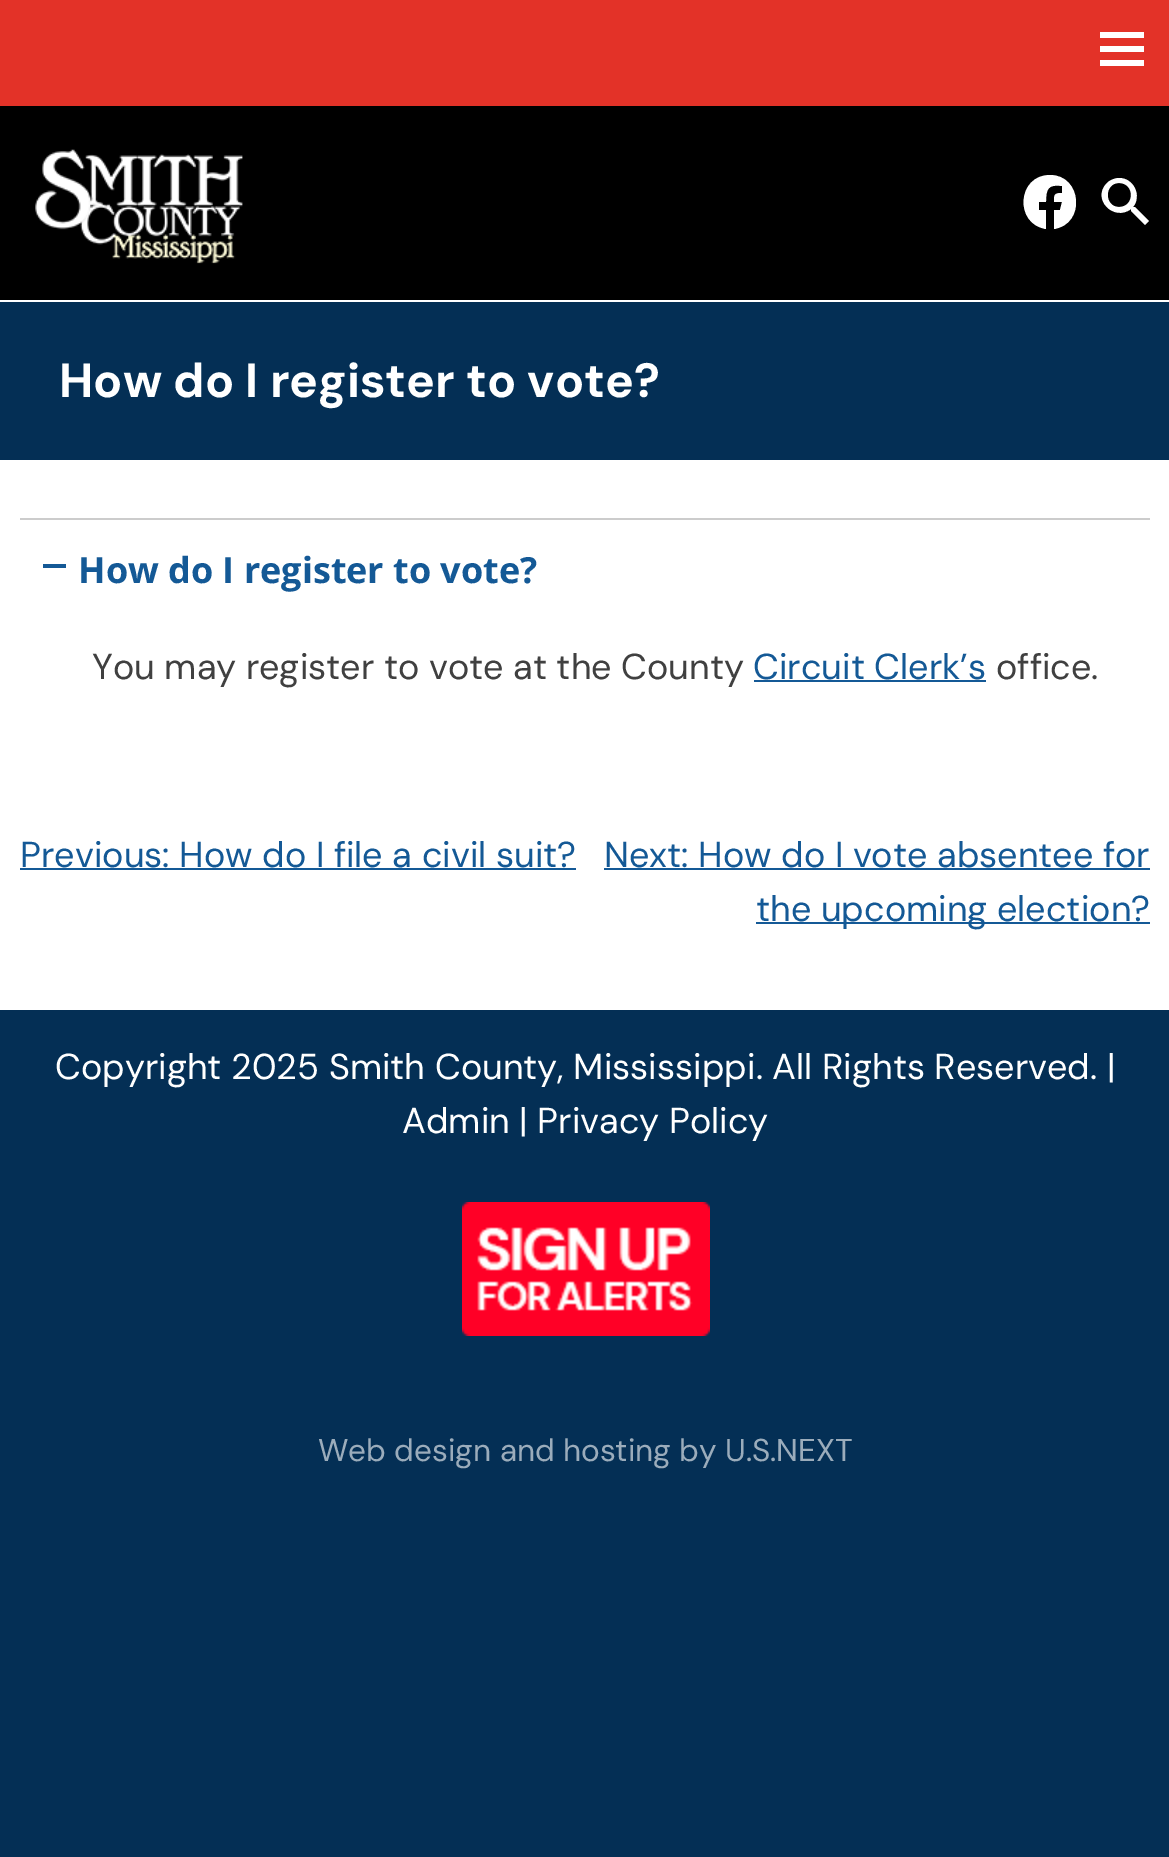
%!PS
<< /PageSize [1169 1857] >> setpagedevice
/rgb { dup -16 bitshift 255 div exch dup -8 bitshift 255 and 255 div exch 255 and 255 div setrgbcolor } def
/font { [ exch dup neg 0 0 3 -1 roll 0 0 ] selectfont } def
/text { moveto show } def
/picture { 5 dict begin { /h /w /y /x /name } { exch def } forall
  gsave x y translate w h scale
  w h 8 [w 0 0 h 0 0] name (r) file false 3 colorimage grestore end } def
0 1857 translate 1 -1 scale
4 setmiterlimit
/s1 { /DMSans-Bold 48 font 16#FFFFFF rgb } def
/s2 { /OpenSans-Bold 36 font 16#145996 rgb } def
/s3 { /DMSans-Regular 36 font 16#404040 rgb } def
/s4 { /DMSans-Regular 36 font 16#145996 rgb } def
/s5 { /DMSans-Regular 36 font 16#FFFFFF rgb } def
/s6 { /DMSans-Regular 31.5 font 16#9BACBB rgb } def
16#042F55 rgb
0 0 1169 1857 rectfill
16#FFFFFF rgb
0 460 1169 550 rectfill
16#000000 rgb
0 106 1169 194 rectfill
16#E33228 rgb
0 0 1169 106 rectfill
(pic1.raw) 35 149 208 115 picture
16#FFFFFF rgb
1050 175 moveto 1017 175 1014 224 1046 229 curveto 1046 210 lineto 1039 210 lineto 1039 202 lineto 1046 202 lineto 1046 189 1048 184 1062 186 curveto 1062 193 lineto 1054 193 1054 195 1054 202 curveto 1062 202 lineto 1060 210 lineto 1054 210 lineto 1054 229 lineto 1086 224 1082 175 1050 175 curveto closepath fill
1119 178 moveto 1134 178 1142 196 1133 207 curveto 1135 207 lineto 1149 221 lineto 1145 225 lineto 1131 211 lineto 1131 209 lineto 1114 222 1091 199 1107 183 curveto 1110 180 1115 178 1119 178 curveto 1119 183 moveto 1104 183 1104 207 1119 207 curveto 1135 207 1135 183 1119 183 curveto closepath fill
1100 32 44 6 rectfill
1100 46 44 6 rectfill
1100 60 44 6 rectfill
0 300 1169 2 rectfill
s1
(How do I register to vote?) 59 397 text
16#CCCCCC rgb
20 518 1130 2 rectfill
16#145996 rgb
43 564 23 4 rectfill
s2
(How do I register to vote?) 78 583 text
s3
(You may register to vote at the County) 92 679 text
s4
(Circuit Clerk’s) 753 679 text
754 680 232 2 rectfill
s3
(office.) 996 679 text
s4
(Previous: How do I file a civil suit?) 20 867 text
20 868 556 2 rectfill
(Next: How do I vote absentee for) 604 867 text
604 868 546 2 rectfill
756 922 394 2 rectfill
(the upcoming election?) 756 921 text
s5
(Copyright 2025 Smith County, Mississippi. All Rights Reserved. |) 55 1079 text
(Admin | Privacy Policy) 402 1133 text
(pic2.raw) 462 1202 248 134 picture
s6
(Web design and hosting by U.S.NEXT) 318 1461 text
showpage
